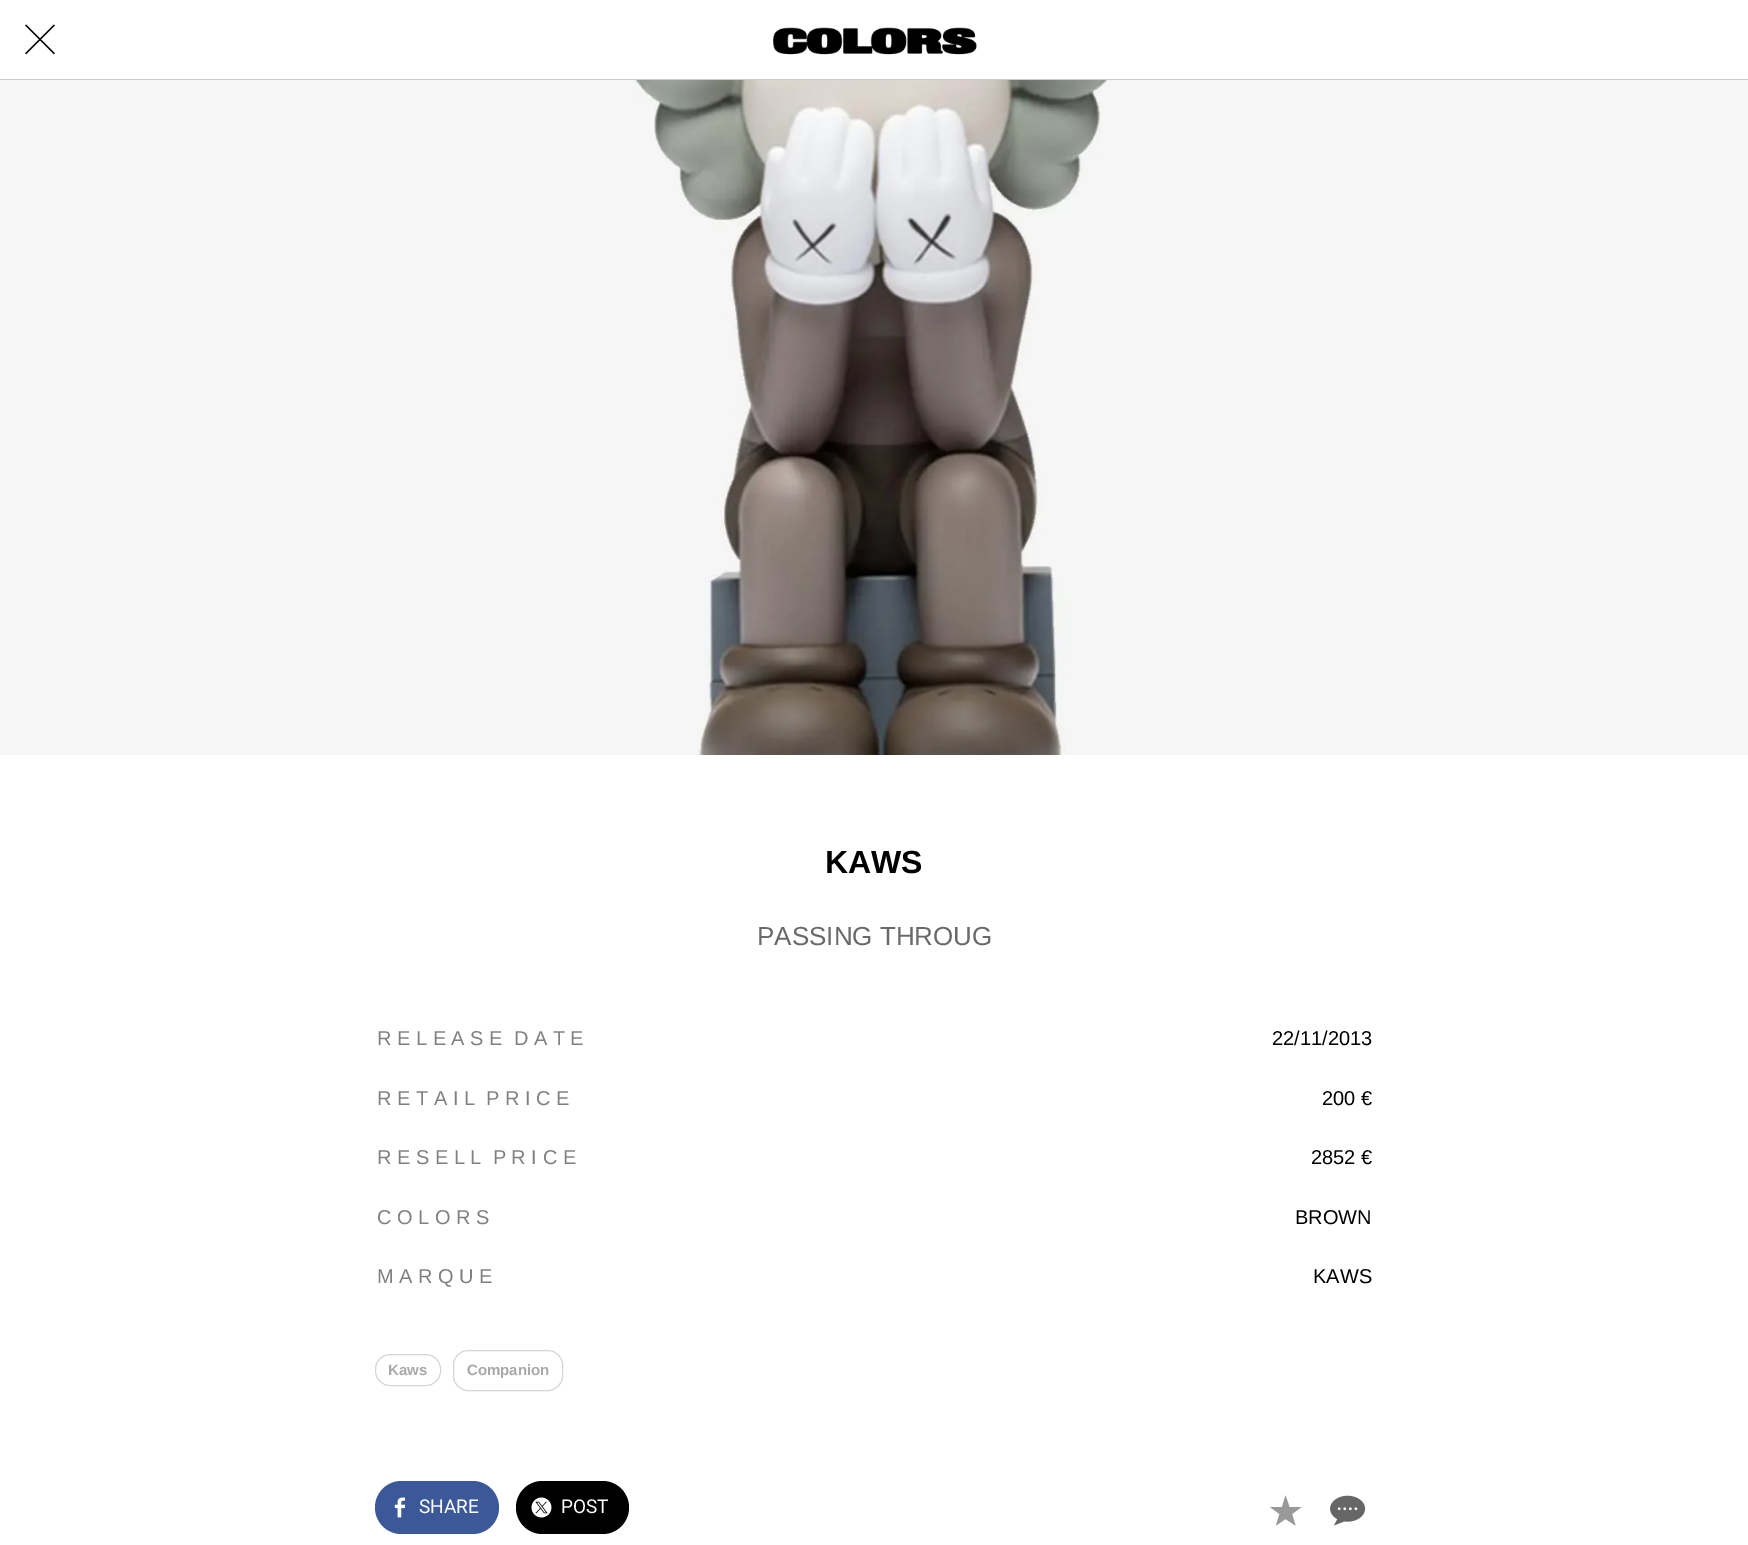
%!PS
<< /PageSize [1748 1545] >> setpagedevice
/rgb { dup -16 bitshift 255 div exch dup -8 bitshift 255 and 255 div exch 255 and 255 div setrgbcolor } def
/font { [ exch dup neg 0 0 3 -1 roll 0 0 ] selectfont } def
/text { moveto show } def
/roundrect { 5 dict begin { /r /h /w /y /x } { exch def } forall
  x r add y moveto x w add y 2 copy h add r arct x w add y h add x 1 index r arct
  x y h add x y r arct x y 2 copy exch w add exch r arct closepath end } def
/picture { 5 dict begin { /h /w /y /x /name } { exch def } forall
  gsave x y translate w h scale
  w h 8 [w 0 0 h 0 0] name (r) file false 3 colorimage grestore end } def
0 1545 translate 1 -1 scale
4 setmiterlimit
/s1 { /LiberationSans-Bold 32 font 16#000000 rgb } def
/s2 { /LiberationSans-Regular 26 font 16#696969 rgb } def
/s3 { /LiberationSans-Regular 20 font 16#808080 rgb } def
/s4 { /LiberationSans-Regular 20 font 16#000000 rgb } def
/s5 { /LiberationSans-Bold 15 font 16#A9A9A9 rgb } def
/s6 { /Roboto-Regular 19 font 16#FFFFFF rgb } def
16#FFFFFF rgb
0 0 1748 1545 rectfill
16#CCCCCC rgb
0 79 1748 1 rectfill
(pic1.raw) 25 24 30 31 picture
(pic2.raw) 773 27 204 28 picture
(pic3.raw) 0 80 1748 675 picture
s1
(KAWS) 825 873 text
s2
(PASSING THROUG) 757 945 text
s3
(R E L E A S E  D A T E) 377 1045 text
s4
(22/11/2013) 1272 1045 text
s3
(R E T A I L  P R I C E) 377 1105 text
s4
(200 €) 1322 1105 text
s3
(R E S E L L  P R I C E) 377 1164 text
s4
(2852 €) 1311 1164 text
s3
(C O L O R S) 377 1224 text
s4
(BROWN) 1295 1224 text
s3
(M A R Q U E) 377 1283 text
s4
(KAWS) 1313 1283 text
16#D6D6D6 rgb
375.5 1354.5 65 31 14.5 roundrect stroke
s5
(Kaws) 388 1375 text
16#D6D6D6 rgb
453.5 1350.5 109 40 14.5 roundrect stroke
s5
(Companion) 467 1375 text
16#3B5999 rgb
375 1481 124 53 26.5 roundrect fill
(pic4.raw) 394 1497 12 21 picture
s6
(SHARE) 419 1513 text
16#000000 rgb
516 1481 113 53 26.5 roundrect fill
(pic5.raw) 531 1497 21 21 picture
s6
(POST) 561 1513 text
16#999999 rgb
1301.5 1507 moveto 1289.5 1507 lineto 1285.5 1495.5 lineto 1282 1507 lineto 1270 1507 lineto 1279.5 1514 lineto 1276 1525.5 lineto 1285.5 1519 lineto 1295.5 1525.5 lineto 1292 1514 lineto closepath fill
(pic6.raw) 1330 1495 36 31 picture
showpage
